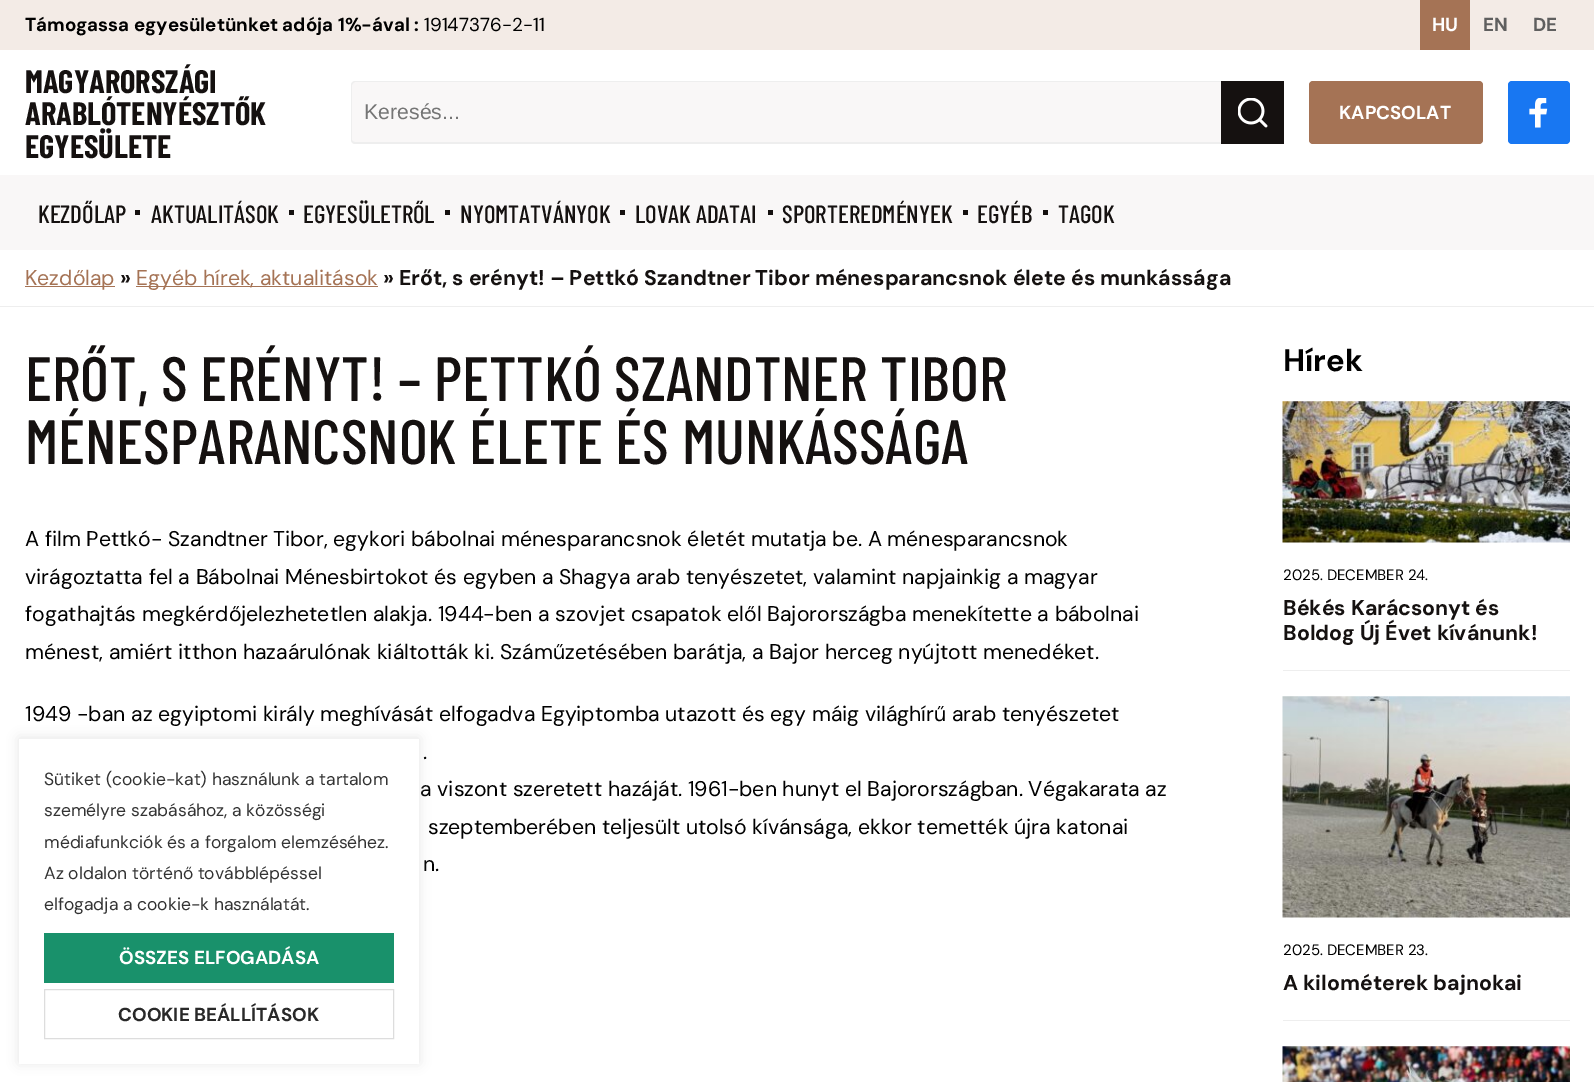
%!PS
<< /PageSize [1594 1082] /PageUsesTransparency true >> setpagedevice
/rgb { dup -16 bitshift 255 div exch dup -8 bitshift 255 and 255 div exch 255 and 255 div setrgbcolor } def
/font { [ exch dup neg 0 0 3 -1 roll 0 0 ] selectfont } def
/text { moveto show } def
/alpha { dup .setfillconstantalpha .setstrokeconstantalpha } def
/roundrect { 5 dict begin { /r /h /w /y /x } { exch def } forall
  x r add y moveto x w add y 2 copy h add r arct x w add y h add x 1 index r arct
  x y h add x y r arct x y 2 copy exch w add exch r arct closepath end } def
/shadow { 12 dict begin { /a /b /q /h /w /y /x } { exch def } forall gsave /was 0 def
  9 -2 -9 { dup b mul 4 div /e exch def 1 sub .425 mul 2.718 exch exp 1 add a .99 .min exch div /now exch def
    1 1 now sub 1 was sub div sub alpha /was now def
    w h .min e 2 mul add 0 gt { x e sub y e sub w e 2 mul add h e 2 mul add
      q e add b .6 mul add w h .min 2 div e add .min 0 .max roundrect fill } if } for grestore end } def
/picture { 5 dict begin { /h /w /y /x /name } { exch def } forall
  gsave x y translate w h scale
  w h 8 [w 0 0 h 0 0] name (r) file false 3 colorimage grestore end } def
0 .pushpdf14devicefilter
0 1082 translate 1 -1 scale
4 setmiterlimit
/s1 { /DMSans-Bold 18.75 font 16#000000 rgb } def
/s2 { /DMSans-Regular 18.75 font 16#000000 rgb } def
/s3 { /DMSans-Bold 18.75 font 16#FFFFFF rgb } def
/s4 { /DMSans-Bold 18.75 font 16#5F5F5F rgb } def
/s5 { /BarlowCondensed-Bold 32.5 font 16#151110 rgb } def
/s6 { /LiberationSans-Regular 21.25 font 16#757575 rgb } def
/s7 { /BarlowCondensed-Medium 25 font 16#151110 rgb } def
/s8 { /DMSans-Regular 21.25 font 16#A57355 rgb } def
/s9 { /DMSans-Bold 21.25 font 16#151110 rgb } def
/s10 { /BarlowCondensed-Medium 62.5 font 16#151110 rgb } def
/s11 { /DMSans-Regular 21.25 font 16#000000 rgb } def
/s12 { /DMSans-Bold 31 font 16#000000 rgb } def
/s13 { /DMSans-Regular 15 font 16#000000 rgb } def
/s14 { /DMSans-Regular 17.5 font 16#333333 rgb } def
/s15 { /DMSans-Bold 18.75 font 16#292929 rgb } def
16#FFFFFF rgb
0 0 1594 1082 rectfill
16#F3EBE6 rgb
0 0 1594 50 rectfill
s1
(Támogassa egyesületünket adója 1%-ával :) 25 31 text
s2
(19147376-2-11) 424 31 text
16#A57355 rgb
1420 0 50 50 rectfill
s3
(HU) 1432 31 text
s4
(EN) 1483 31 text
(DE) 1533 31 text
s5
(MAGYARORSZÁGI) 25 93 text
(ARABLÓTENYÉSZTŐK) 25 125 text
(EGYESÜLETE) 25 158 text
16#F9F7F7 rgb
355 81 moveto 1221 81 lineto 1221 144 lineto 355 144 lineto 353 144 351 142 351 140 curveto 351 85 lineto 351 83 353 81 355 81 curveto closepath fill
16#EEEEEE rgb
355 81 moveto 1221 81 lineto 1221 144 lineto 355 144 lineto 353 144 351 142 351 140 curveto 351 85 lineto 351 83 353 81 355 81 curveto closepath 355 82 moveto 1221 82 lineto 1221 142 lineto 355 142 lineto 354 142 352 141 352 140 curveto 352 85 lineto 352 84 354 82 355 82 curveto closepath eofill
s6
(Keresés...) 364 119 text
16#151110 rgb
1221 81 63 63 rectfill
(pic1.raw) 1238 98 30 30 picture
16#A57355 rgb
1309 81 174 63 4 roundrect fill
s3
(KAPCSOLAT) 1339 119 text
16#1877F2 rgb
1508 81 62 63 4 roundrect fill
(pic2.raw) 1529 98 19 30 picture
16#F9F7F7 rgb
0 175 1594 75 rectfill
s7
(KEZDŐLAP) 38 223 text
135 210 5 5 rectfill
(AKTUALITÁSOK) 151 223 text
289 210 5 5 rectfill
(EGYESÜLETRŐL) 303 223 text
445 210 5 5 rectfill
(NYOMTATVÁNYOK) 460 223 text
620 210 5 5 rectfill
(LOVAK ADATAI) 635 223 text
768 210 5 5 rectfill
(SPORTEREDMÉNYEK) 782 223 text
963 210 5 5 rectfill
(EGYÉB) 977 223 text
1043 210 5 5 rectfill
(TAGOK) 1058 223 text
16#EEEEEE rgb
0 306 1594 1 rectfill
16#A57355 rgb
25 286 90 1 rectfill
s8
(Kezdőlap) 25 285 text
s9
(») 120 285 text
16#A57355 rgb
136 286 242 1 rectfill
s8
(Egyéb hírek, aktualitások) 136 285 text
s9
(» Erőt, s erényt! – Pettkó Szandtner Tibor ménesparancsnok élete és munkássága) 383 285 text
s10
(ERŐT, S ERÉNYT! – PETTKÓ SZANDTNER TIBOR) 25 401 text
(MÉNESPARANCSNOK ÉLETE ÉS MUNKÁSSÁGA) 25 464 text
s11
(A film Pettkó- Szandtner Tibor, egykori bábolnai ménesparancsnok életét mutatja be. A ménesparancsnok) 25 546 text
(virágoztatta fel a Bábolnai Ménesbirtokot és egyben a Shagya arab tenyészetet, valamint napjainkig a magyar) 25 584 text
(fogathajtás megkérdőjelezhetetlen alakja. 1944-ben a szovjet csapatok elől Bajorországba menekítette a bábolnai) 25 621 text
(ménest, amiért itthon hazaárulónak kiáltották ki. Száműzetésében barátja, a Bajor herceg nyújtott menedéket.) 25 659 text
(1949 -ban az egyiptomi király meghívását elfogadva Egyiptomba utazott és egy máig világhírű arab tenyészetet) 25 721 text
(.) 423 759 text
(a viszont szeretett hazáját. 1961-ben hunyt el Bajorországban. Végakarata az) 420 796 text
(szeptemberében teljesült utolsó kívánsága, ekkor temették újra katonai) 428 834 text
(n.) 423 871 text
s12
(Hírek) 1283 371 text
16#EEEEEE rgb
1283 670 287 1 rectfill
(pic3.raw) 1282 401 288 142 picture
s13
(2025. DECEMBER 24.) 1283 580 text
s9
(Békés Karácsonyt és) 1283 615 text
(Boldog Új Évet kívánunk!) 1283 640 text
16#EEEEEE rgb
1283 1020 287 1 rectfill
(pic4.raw) 1282 696 288 222 picture
s13
(2025. DECEMBER 23.) 1283 955 text
s9
(A kilométerek bajnokai) 1283 990 text
(pic5.raw) 1282 1046 288 36 picture
16#ACABAB rgb
19 738 400 325 0 6 0.3 shadow
16#FFFFFF rgb
19 739 400 325 rectfill
s14
(Sütiket \(cookie-kat\) használunk a tartalom) 44 785 text
(személyre szabásához, a közösségi) 44 816 text
(médiafunkciók és a forgalom elemzéséhez.) 44 848 text
(Az oldalon történő továbblépéssel) 44 879 text
(elfogadja a cookie-k használatát.) 44 910 text
16#19916B rgb
44 933 350 50 rectfill
s3
(ÖSSZES ELFOGADÁSA) 119 964 text
16#DDDDDD rgb
44.5 989.5 349 49 rectstroke
s15
(COOKIE BEÁLLÍTÁSOK) 118 1021 text
.poppdf14devicefilter showpage
